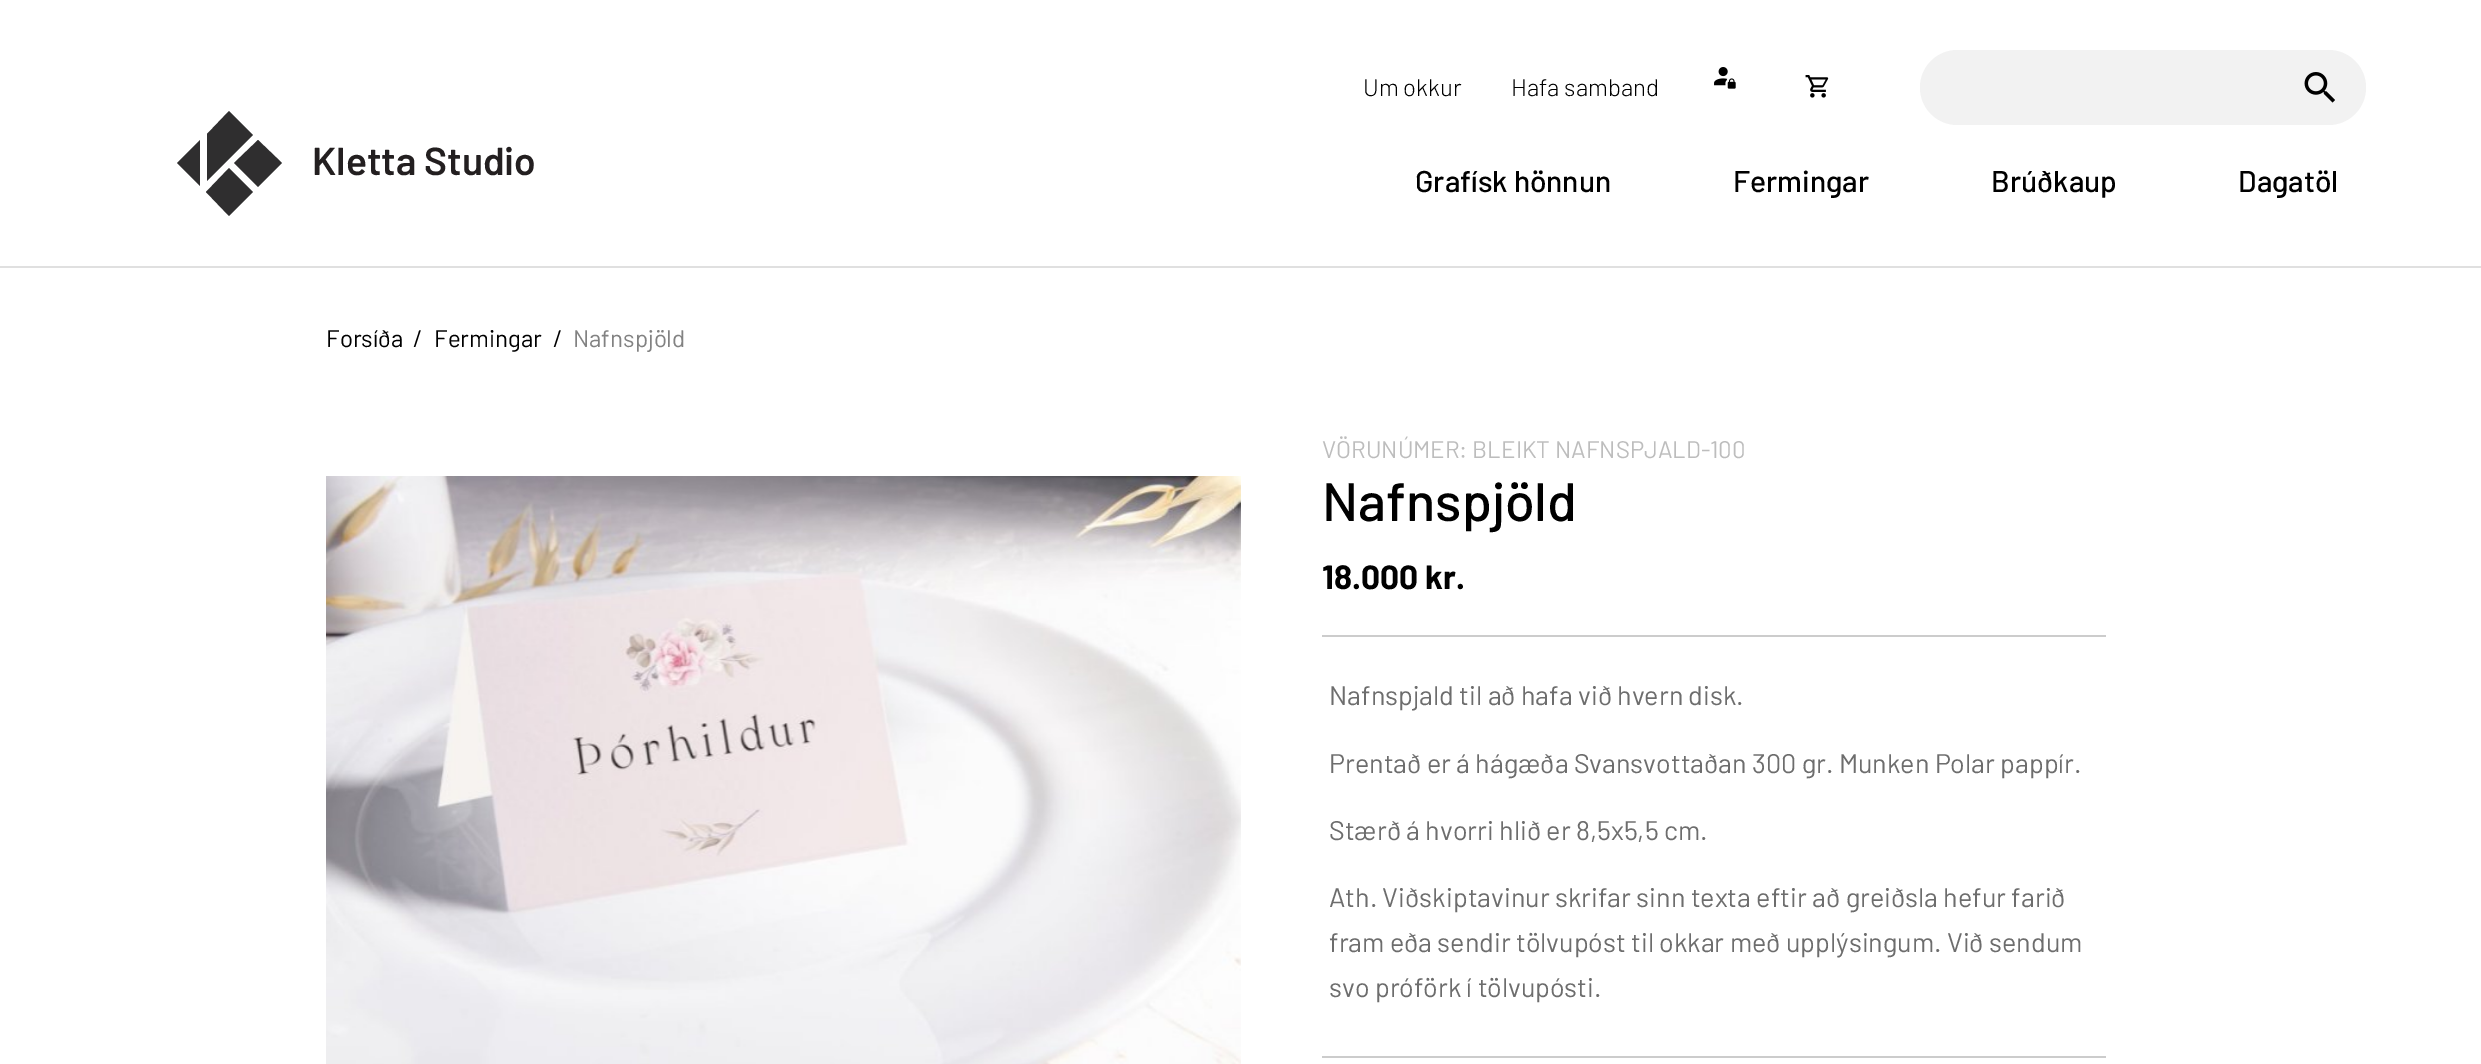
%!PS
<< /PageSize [2481 1064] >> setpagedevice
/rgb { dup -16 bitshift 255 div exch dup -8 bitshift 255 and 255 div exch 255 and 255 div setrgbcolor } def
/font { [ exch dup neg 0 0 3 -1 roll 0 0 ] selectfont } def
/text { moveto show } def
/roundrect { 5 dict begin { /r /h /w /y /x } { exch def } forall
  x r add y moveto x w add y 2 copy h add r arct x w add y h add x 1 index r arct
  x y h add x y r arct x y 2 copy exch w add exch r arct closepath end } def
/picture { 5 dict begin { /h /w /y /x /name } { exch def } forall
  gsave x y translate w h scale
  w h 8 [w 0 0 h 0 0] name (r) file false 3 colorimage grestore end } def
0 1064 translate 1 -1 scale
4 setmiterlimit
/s1 { /Barlow-Light 24 font 16#000000 rgb } def
/s2 { /Barlow-SemiBold 39 font 16#231F20 rgb } def
/s3 { /Barlow-Medium 30 font 16#000000 rgb } def
/s4 { /Barlow-Regular 24 font 16#000000 rgb } def
/s5 { /Barlow-Regular 24 font 16#828282 rgb } def
/s6 { /Barlow-Regular 24 font 16#BDBDBD rgb } def
/s7 { /Barlow-Medium 54 font 16#000000 rgb } def
/s8 { /Barlow-Bold 33.5 font 16#000000 rgb } def
/s9 { /Barlow-Regular 26.9 font 16#6D6D6D rgb } def
16#FFFFFF rgb
0 0 2481 1064 rectfill
16#E0E0E0 rgb
0 266 2481 2 rectfill
s1
(Um okkur) 1363 96 text
(Hafa samband) 1511 96 text
(pic1.raw) 1714 67 22 22 picture
(pic2.raw) 1805 75 24 23 picture
16#F2F2F2 rgb
1920 50 446 75 37.5 roundrect fill
(pic3.raw) 2304 72 31 31 picture
16#2F2E2F rgb
253 135 moveto 207 181 lineto 207 134 lineto 229 111 lineto closepath fill
258 140 moveto 282 163 lineto 258 187 lineto 234 163 lineto closepath fill
200 140 moveto 177 163 lineto 200 186 lineto closepath fill
229 168 moveto 206 192 lineto 229 216 lineto 253 192 lineto closepath fill
s2
(Kletta Studio) 312 175 text
s3
(Grafísk hönnun) 1415 192 text
(Fermingar) 1733 192 text
(Brúðkaup) 1991 192 text
(Dagatöl) 2238 192 text
s4
(Forsíða) 326 347 text
(/) 413 347 text
(Fermingar) 434 347 text
(/) 553 347 text
s5
(Nafnspjöld) 573 347 text
(pic4.raw) 326 476 915 588 picture
s6
(VÖRUNÚMER: BLEIKT NAFNSPJALD-100) 1322 458 text
s7
(Nafnspjöld) 1322 521 text
s8
(18.000 kr.) 1322 589 text
16#CCCCCC rgb
1322 635 784 2 rectfill
1322 1056 784 2 rectfill
s9
(Nafnspjald til að hafa við hvern disk.) 1329 705 text
(Prentað er á hágæða Svansvottaðan 300 gr. Munken Polar pappír.) 1329 773 text
(Stærð á hvorri hlið er 8,5x5,5 cm.) 1329 840 text
(Ath. Viðskiptavinur skrifar sinn texta eftir að greiðsla hefur farið) 1329 907 text
(fram eða sendir tölvupóst til okkar með upplýsingum. Við sendum) 1329 952 text
(svo próförk í tölvupósti.) 1329 997 text
showpage
